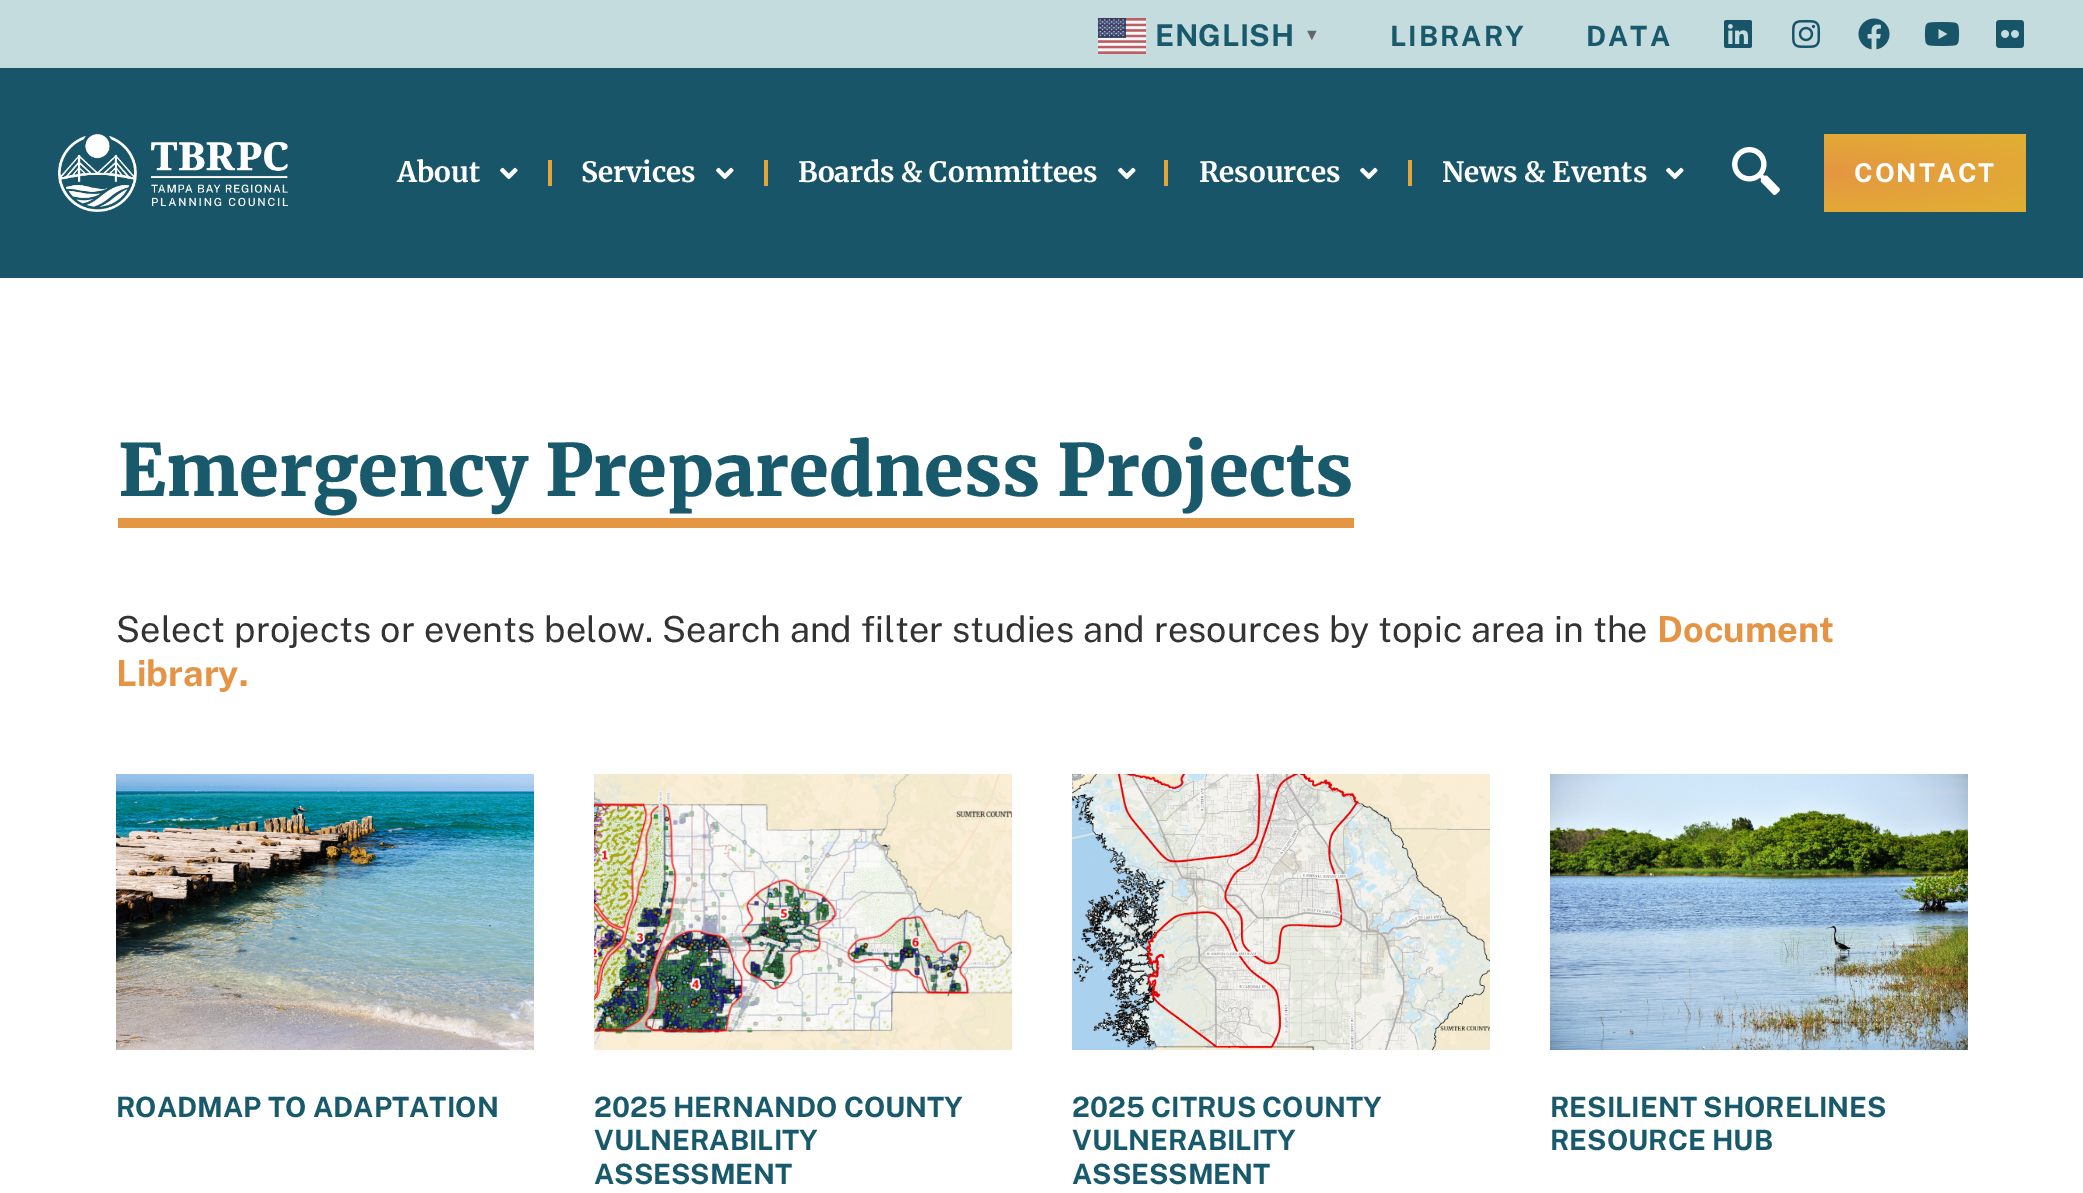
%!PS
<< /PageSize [2083 1193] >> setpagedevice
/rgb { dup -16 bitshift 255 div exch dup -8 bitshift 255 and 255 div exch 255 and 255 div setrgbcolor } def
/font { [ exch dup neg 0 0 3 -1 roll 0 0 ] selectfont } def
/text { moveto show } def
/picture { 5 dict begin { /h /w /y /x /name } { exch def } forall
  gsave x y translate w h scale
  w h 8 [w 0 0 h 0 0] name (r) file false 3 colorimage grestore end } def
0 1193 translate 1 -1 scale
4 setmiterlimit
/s1 { /Merriweather-Bold 28 font 16#FFFFFF rgb } def
/s2 { /Merriweather-Black 72 font 16#18596B rgb } def
/s3 { /PublicSans-Regular 36 font 16#333333 rgb } def
/s4 { /PublicSans-Bold 36 font 16#E59344 rgb } def
/s5 { /PublicSans-Bold 28 font 16#18596B rgb } def
16#FFFFFF rgb
0 0 2083 1193 rectfill
16#C5DCDF rgb
0 0 2083 68 rectfill
(pic1.raw) 1098 18 48 36 picture
/PublicSans-Bold 30 font
16#18596B rgb
1155 46 moveto 0.5 0 (ENGLISH) ashow
/LiberationSans-Bold 16 font
16#666666 rgb
1304 40 moveto 0.5 0 (▼) ashow
/PublicSans-Bold 28 font
16#18596B rgb
1390 46 moveto 2 0 (LIBRARY) ashow
1586 46 moveto 2 0 (DATA) ashow
(pic2.raw) 1724 20 28 28 picture
(pic3.raw) 1792 19 29 29 picture
(pic4.raw) 1858 18 32 32 picture
(pic5.raw) 1924 22 36 24 picture
(pic6.raw) 1996 20 28 28 picture
16#185568 rgb
0 68 2083 210 rectfill
(pic7.raw) 58 134 230 78 picture
s1
(About) 397 182 text
(pic8.raw) 500 167 18 13 picture
16#E3A43A rgb
548 160 4 26 rectfill
s1
(Services) 581 182 text
(pic8.raw) 716 167 18 13 picture
16#E3A43A rgb
764 160 4 26 rectfill
s1
(Boards & Committees) 798 182 text
(pic8.raw) 1118 167 18 13 picture
16#E3A43A rgb
1164 160 4 26 rectfill
s1
(Resources) 1199 182 text
(pic8.raw) 1360 167 18 13 picture
16#E3A43A rgb
1408 160 4 26 rectfill
s1
(News & Events) 1442 182 text
(pic8.raw) 1666 167 18 13 picture
(pic9.raw) 1732 147 48 48 picture
gsave 1824 134 moveto 2026 134 lineto 2026 212 lineto 1824 212 lineto closepath clip newpath 1824 173 translate 286 55 scale
<< /ShadingType 3 /ColorSpace /DeviceRGB /Coords [0 0 0 0 0 1] /Extend [true true] /Function << /FunctionType 3 /Domain [0 1] /Functions [<< /FunctionType 2 /Domain [0 1] /C0 [0.898 0.588 0.259] /C1 [0.882 0.682 0.204] /N 1 >> << /FunctionType 2 /Domain [0 1] /C0 [0.882 0.682 0.204] /C1 [0.882 0.682 0.204] /N 1 >>] /Bounds [0.9] /Encode [0 1 0 1] >> >> shfill grestore
/PublicSans-Bold 26 font
1854 182 moveto 2 0 (CONTACT) ashow
16#E59643 rgb
118 518 1236 10 rectfill
s2
(Emergency Preparedness Projects) 118 496 text
s3
(Select projects or events below. Search and filter studies and resources by topic area in the) 116 642 text
s4
(Document) 1657 642 text
(Library.) 116 686 text
(pic10.raw) 116 774 418 276 picture
s5
(ROADMAP TO ADAPTATION) 116 1117 text
(pic11.raw) 594 774 418 276 picture
(2025 HERNANDO COUNTY) 594 1117 text
(VULNERABILITY) 594 1150 text
(ASSESSMENT) 594 1184 text
(pic12.raw) 1072 774 418 276 picture
(2025 CITRUS COUNTY) 1072 1117 text
(VULNERABILITY) 1072 1150 text
(ASSESSMENT) 1072 1184 text
(pic13.raw) 1550 774 418 276 picture
(RESILIENT SHORELINES) 1550 1117 text
(RESOURCE HUB) 1550 1150 text
showpage
